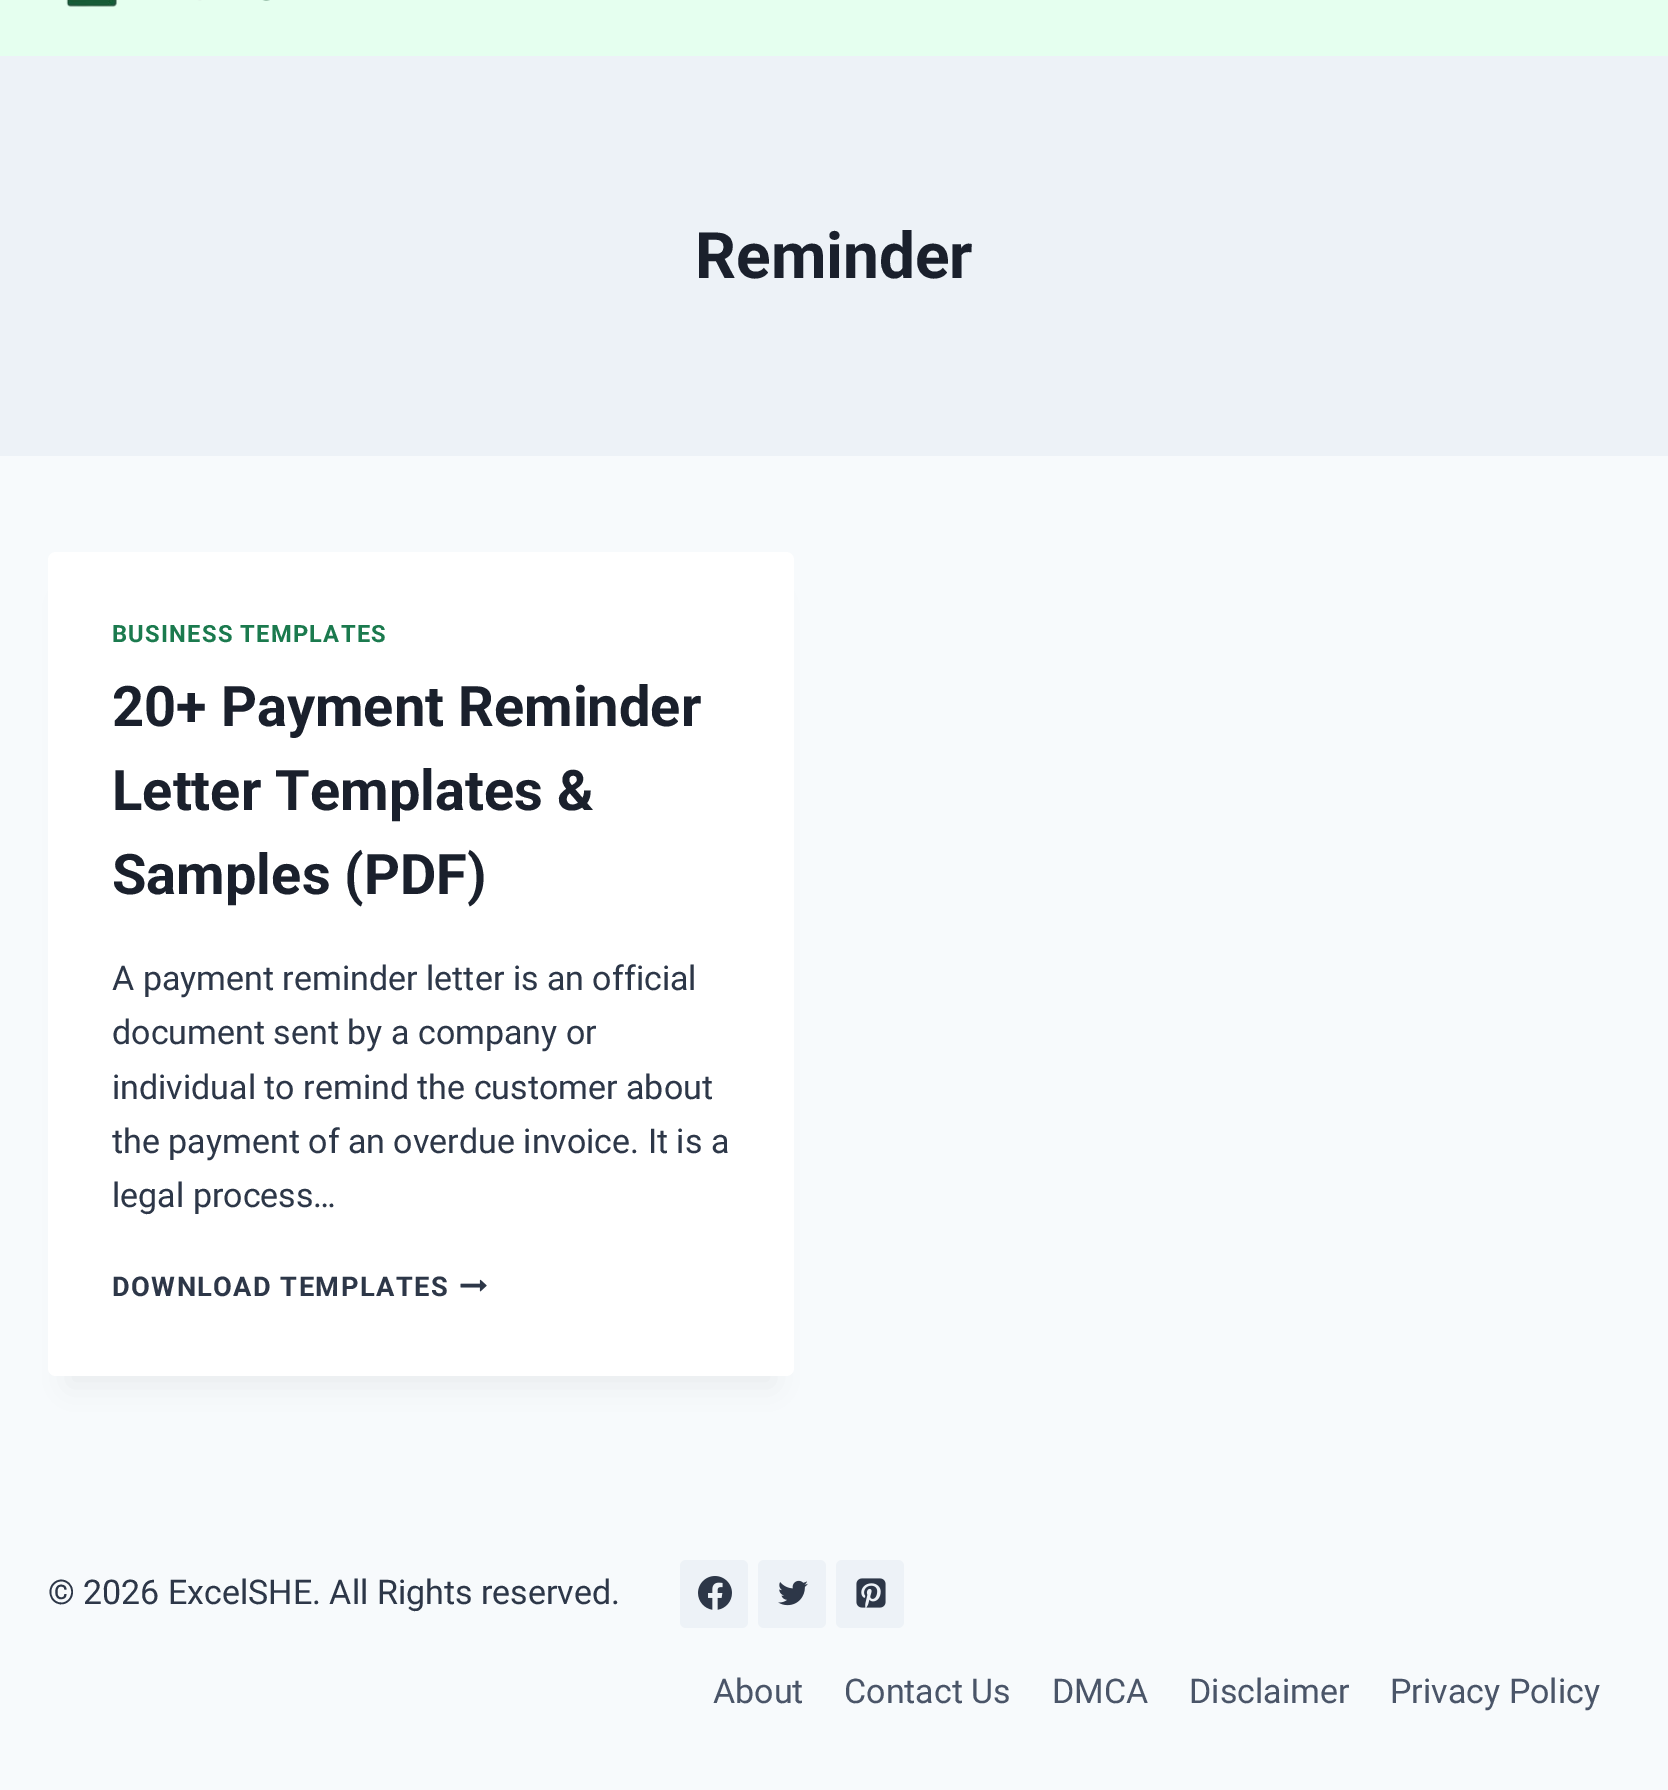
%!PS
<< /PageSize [1668 1790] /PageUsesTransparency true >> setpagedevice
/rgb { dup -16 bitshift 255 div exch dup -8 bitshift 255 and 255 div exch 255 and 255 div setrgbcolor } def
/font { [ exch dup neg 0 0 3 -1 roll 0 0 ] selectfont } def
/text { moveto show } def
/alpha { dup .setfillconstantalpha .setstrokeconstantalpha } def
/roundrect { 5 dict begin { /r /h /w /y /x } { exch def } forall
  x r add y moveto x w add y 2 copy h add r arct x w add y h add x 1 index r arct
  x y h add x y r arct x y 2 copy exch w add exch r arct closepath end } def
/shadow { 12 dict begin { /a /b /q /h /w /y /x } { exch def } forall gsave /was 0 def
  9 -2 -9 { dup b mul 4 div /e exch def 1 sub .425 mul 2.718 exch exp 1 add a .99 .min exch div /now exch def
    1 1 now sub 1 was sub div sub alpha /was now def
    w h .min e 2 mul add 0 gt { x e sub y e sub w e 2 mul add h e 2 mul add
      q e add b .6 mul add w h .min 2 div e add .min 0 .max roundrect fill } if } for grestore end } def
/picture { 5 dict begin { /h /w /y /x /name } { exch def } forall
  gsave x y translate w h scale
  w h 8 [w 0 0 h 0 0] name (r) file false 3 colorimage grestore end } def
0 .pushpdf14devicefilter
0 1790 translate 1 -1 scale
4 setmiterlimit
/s1 { /Roboto-Bold 64 font 16#1A202C rgb } def
/s2 { /Roboto-Bold 56 font 16#1A202C rgb } def
/s3 { /Roboto-Regular 34 font 16#2D3748 rgb } def
/s4 { /Roboto-Regular 34 font 16#4A5568 rgb } def
16#F7FAFC rgb
0 0 1668 1790 rectfill
16#E5FFEF rgb
0 0 1668 56 rectfill
(pic1.raw) 66 0 204 7 picture
16#EDF2F7 rgb
0 56 1668 400 rectfill
s1
(Reminder) 695 278 text
16#000000 rgb
68 602 706 784 0 15 0.05 shadow
16#FFFFFF rgb
48 552 746 824 8 roundrect fill
/Roboto-Bold 23.75 font
16#1B7A4E rgb
112 642 moveto 1.2 0 (BUSINESS TEMPLATES) ashow
s2
(20+ Payment Reminder) 112 726 text
(Letter Templates &) 112 810 text
(Samples \(PDF\)) 112 894 text
s3
(A payment reminder letter is an official) 112 990 text
(document sent by a company or) 112 1044 text
(individual to remind the customer about) 112 1099 text
(the payment of an overdue invoice. It is a) 112 1153 text
(legal process…) 112 1207 text
/Roboto-Bold 27.25 font
112 1296 moveto 1.4 0 (DOWNLOAD TEMPLATES) ashow
(pic2.raw) 460 1279 27 13 picture
s3
(© 2026 ExcelSHE. All Rights reserved.) 48 1604 text
16#EDF2F7 rgb
680 1560 68 68 6 roundrect fill
(pic3.raw) 698 1576 34 34 picture
758 1560 68 68 6 roundrect fill
(pic4.raw) 778 1580 30 26 picture
836 1560 68 68 6 roundrect fill
(pic5.raw) 856 1578 30 30 picture
s4
(About) 713 1703 text
(Contact Us) 844 1703 text
(DMCA) 1052 1703 text
(Disclaimer) 1189 1703 text
(Privacy Policy) 1390 1703 text
.poppdf14devicefilter showpage
